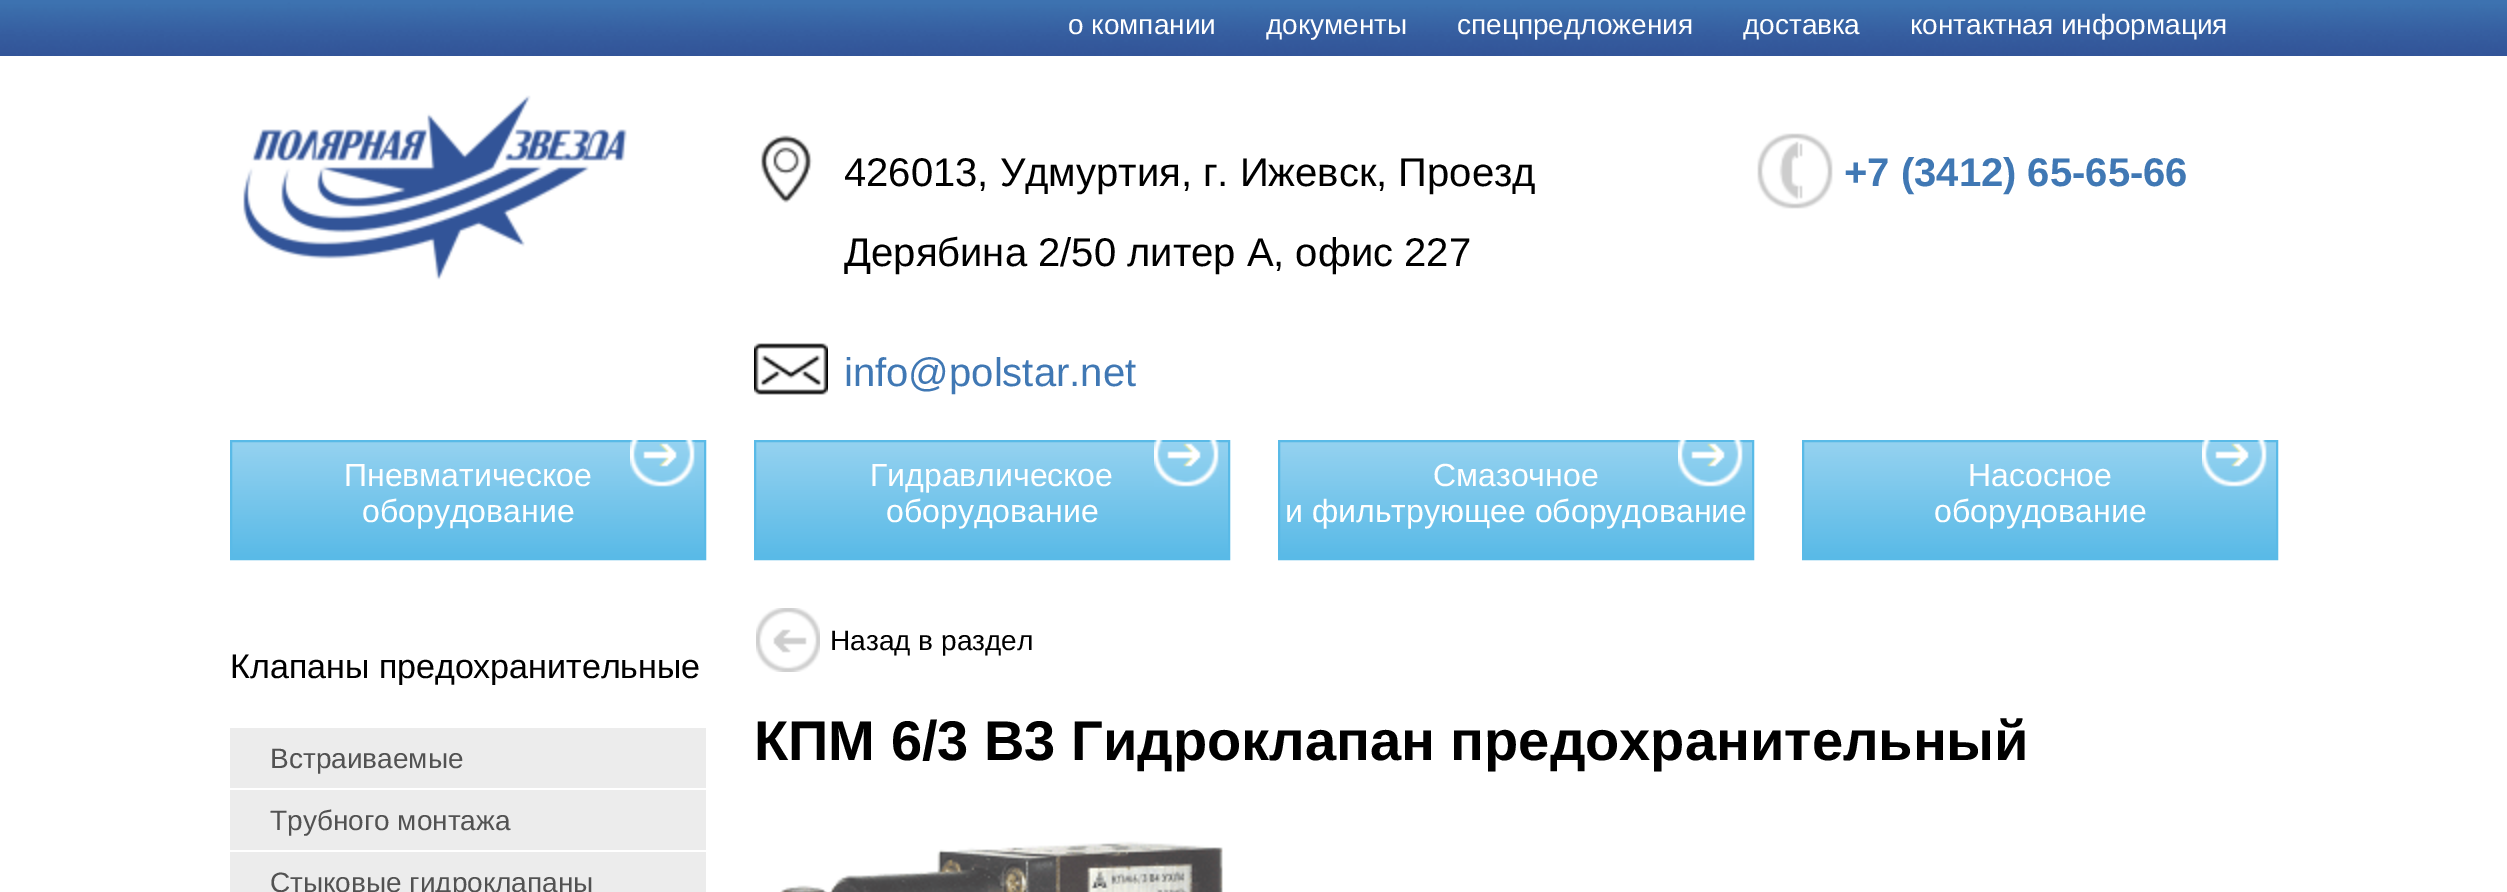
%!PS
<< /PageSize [2507 892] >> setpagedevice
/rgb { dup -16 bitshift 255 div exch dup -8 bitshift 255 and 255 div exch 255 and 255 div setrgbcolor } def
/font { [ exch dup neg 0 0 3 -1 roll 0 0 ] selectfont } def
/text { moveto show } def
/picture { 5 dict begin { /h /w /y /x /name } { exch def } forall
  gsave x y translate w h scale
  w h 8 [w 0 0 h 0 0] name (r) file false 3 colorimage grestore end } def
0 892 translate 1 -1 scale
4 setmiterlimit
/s1 { /LiberationSans-Regular 28 font 16#FFFFFF rgb } def
/s2 { /LiberationSans-Regular 40 font 16#000000 rgb } def
/s3 { /LiberationSans-Regular 40 font 16#4078B4 rgb } def
/s4 { /LiberationSans-Bold 40 font 16#4078B4 rgb } def
/s5 { /LiberationSans-Regular 32 font 16#FFFFFF rgb } def
/s6 { /LiberationSans-Regular 34 font 16#000000 rgb } def
/s7 { /LiberationSans-Regular 28 font 16#525252 rgb } def
/s8 { /LiberationSans-Regular 28 font 16#000000 rgb } def
/s9 { /LiberationSans-Bold 56 font 16#000000 rgb } def
16#FFFFFF rgb
0 0 2507 892 rectfill
(pic1.raw) 0 0 2507 56 picture
s1
(о компании) 1068 34 text
(документы) 1266 34 text
(спецпредложения) 1457 34 text
(доставка) 1743 34 text
(контактная информация) 1910 34 text
(pic2.raw) 243 95 384 185 picture
(pic3.raw) 760 135 53 68 picture
s2
(426013, Удмуртия, г. Ижевск, Проезд) 844 186 text
(Дерябина 2/50 литер А, офис 227) 844 266 text
(pic4.raw) 754 343 74 52 picture
s3
(info@polstar.net) 844 386 text
(pic5.raw) 1757 133 76 76 picture
s4
(+7 \(3412\) 65-65-66) 1844 186 text
gsave 232 442 moveto 704 442 lineto 704 558 lineto 232 558 lineto closepath clip newpath
<< /ShadingType 2 /ColorSpace /DeviceRGB /Coords [468 442 468 558] /Extend [true true] /Function << /FunctionType 2 /Domain [0 1] /C0 [0.584 0.824 0.941] /C1 [0.349 0.729 0.906] /N 1 >> >> shfill grestore
16#59BAE7 rgb
2 setlinewidth
231 441 474 118 rectstroke
s5
(Пневматическое) 344 486 text
(pic6.raw) 630 440 65 47 picture
(оборудование) 362 522 text
gsave 756 442 moveto 1228 442 lineto 1228 558 lineto 756 558 lineto closepath clip newpath
<< /ShadingType 2 /ColorSpace /DeviceRGB /Coords [992 442 992 558] /Extend [true true] /Function << /FunctionType 2 /Domain [0 1] /C0 [0.584 0.824 0.941] /C1 [0.349 0.729 0.906] /N 1 >> >> shfill grestore
16#59BAE7 rgb
755 441 474 118 rectstroke
s5
(Гидравлическое) 870 486 text
(pic6.raw) 1154 440 65 47 picture
(оборудование) 886 522 text
gsave 1280 442 moveto 1752 442 lineto 1752 558 lineto 1280 558 lineto closepath clip newpath
<< /ShadingType 2 /ColorSpace /DeviceRGB /Coords [1516 442 1516 558] /Extend [true true] /Function << /FunctionType 2 /Domain [0 1] /C0 [0.584 0.824 0.941] /C1 [0.349 0.729 0.906] /N 1 >> >> shfill grestore
16#59BAE7 rgb
1279 441 474 118 rectstroke
s5
(Смазочное) 1433 486 text
(pic6.raw) 1678 440 65 47 picture
(и фильтрующее оборудование) 1285 522 text
gsave 1804 442 moveto 2276 442 lineto 2276 558 lineto 1804 558 lineto closepath clip newpath
<< /ShadingType 2 /ColorSpace /DeviceRGB /Coords [2040 442 2040 558] /Extend [true true] /Function << /FunctionType 2 /Domain [0 1] /C0 [0.584 0.824 0.941] /C1 [0.349 0.729 0.906] /N 1 >> >> shfill grestore
16#59BAE7 rgb
1803 441 474 118 rectstroke
s5
(Насосное) 1968 486 text
(pic6.raw) 2202 440 65 47 picture
(оборудование) 1934 522 text
s6
(Клапаны предохранительные) 230 678 text
16#ECECEC rgb
230 728 476 164 rectfill
16#FFFFFF rgb
230 788 476 2 rectfill
s7
(Встраиваемые) 270 768 text
16#FFFFFF rgb
230 850 476 2 rectfill
s7
(Трубного монтажа) 270 830 text
(Стыковые гидроклапаны) 270 892 text
(pic7.raw) 756 608 64 64 picture
s8
(Назад в раздел) 830 650 text
s9
(КПМ 6/3 В3 Гидроклапан предохранительный) 754 760 text
(pic8.raw) 780 841 443 51 picture
showpage
